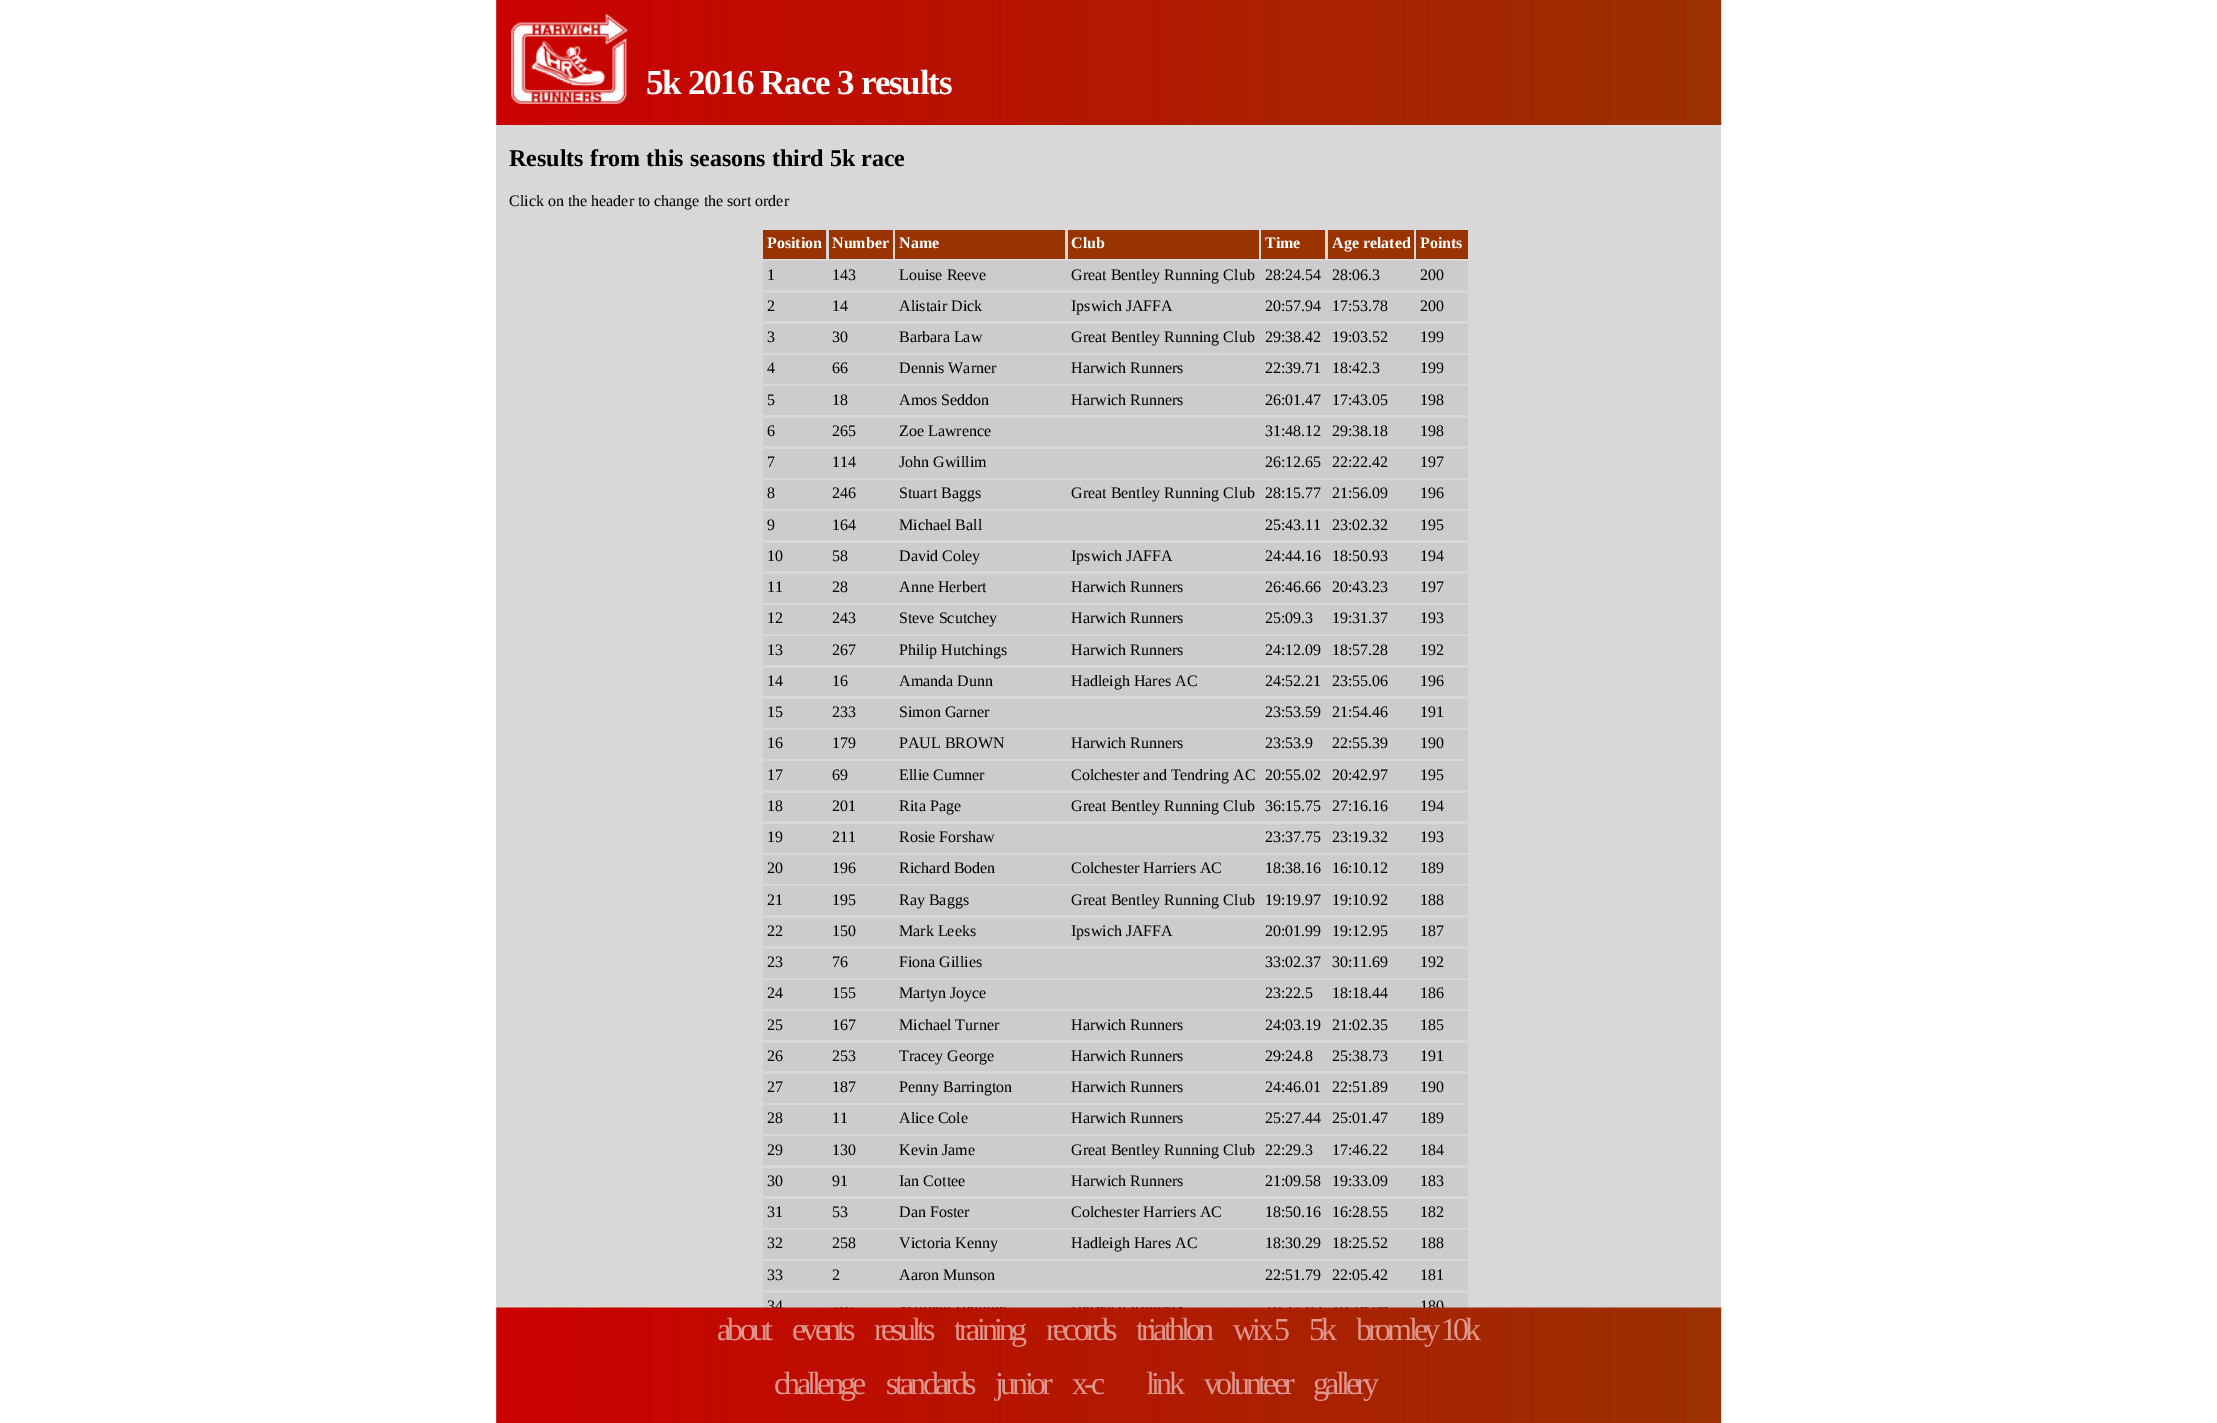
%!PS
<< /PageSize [2217 1423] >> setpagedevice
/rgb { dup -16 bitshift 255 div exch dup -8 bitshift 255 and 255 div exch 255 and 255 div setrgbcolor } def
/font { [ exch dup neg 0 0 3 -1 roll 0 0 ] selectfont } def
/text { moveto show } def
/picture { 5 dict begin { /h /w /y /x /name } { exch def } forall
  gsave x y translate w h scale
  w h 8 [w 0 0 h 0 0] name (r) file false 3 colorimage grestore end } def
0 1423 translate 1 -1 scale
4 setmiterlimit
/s1 { /LiberationSerif-Bold 24 font 16#000000 rgb } def
/s2 { /LiberationSerif-Regular 16 font 16#000000 rgb } def
/s3 { /LiberationSerif-Bold 16 font 16#FFFFFF rgb } def
16#FFFFFF rgb
0 0 2217 1423 rectfill
16#D8D8D8 rgb
496 0 1225 1423 rectfill
(pic1.raw) 496 0 1226 125 picture
(pic2.raw) 511 13 117 91 picture
/LiberationSerif-Bold 35 font
16#FFFFFF rgb
646 94 moveto -1.25 0 (5k 2016 Race 3 results) ashow
s1
(Results from this seasons third 5k race) 509 166 text
s2
(Click on the header to change the sort order) 509 206 text
16#993300 rgb
763 230 63 29 rectfill
s3
(Position) 767 248 text
16#993300 rgb
829 230 64 29 rectfill
s3
(Number) 832 248 text
16#993300 rgb
895 230 170 29 rectfill
s3
(Name) 899 248 text
16#993300 rgb
1068 230 191 29 rectfill
s3
(Club) 1071 248 text
16#993300 rgb
1261 230 64 29 rectfill
s3
(Time) 1265 248 text
16#993300 rgb
1328 230 86 29 rectfill
s3
(Age related) 1332 248 text
16#993300 rgb
1416 230 52 29 rectfill
s3
(Points) 1420 248 text
16#CCCCCC rgb
763 261 705 29 rectfill
s2
(1) 767 280 text
(143) 832 280 text
(Louise Reeve) 899 280 text
(Great Bentley Running Club) 1071 280 text
(28:24.54) 1265 280 text
(28:06.3) 1332 280 text
(200) 1420 280 text
16#CCCCCC rgb
763 293 705 28 rectfill
s2
(2) 767 311 text
(14) 832 311 text
(Alistair Dick) 899 311 text
(Ipswich JAFFA) 1071 311 text
(20:57.94) 1265 311 text
(17:53.78) 1332 311 text
(200) 1420 311 text
16#CCCCCC rgb
763 324 705 29 rectfill
s2
(3) 767 342 text
(30) 832 342 text
(Barbara Law) 899 342 text
(Great Bentley Running Club) 1071 342 text
(29:38.42) 1265 342 text
(19:03.52) 1332 342 text
(199) 1420 342 text
16#CCCCCC rgb
763 355 705 29 rectfill
s2
(4) 767 373 text
(66) 832 373 text
(Dennis Warner) 899 373 text
(Harwich Runners) 1071 373 text
(22:39.71) 1265 373 text
(18:42.3) 1332 373 text
(199) 1420 373 text
16#CCCCCC rgb
763 386 705 29 rectfill
s2
(5) 767 405 text
(18) 832 405 text
(Amos Seddon) 899 405 text
(Harwich Runners) 1071 405 text
(26:01.47) 1265 405 text
(17:43.05) 1332 405 text
(198) 1420 405 text
16#CCCCCC rgb
763 418 705 28 rectfill
s2
(6) 767 436 text
(265) 832 436 text
(Zoe Lawrence) 899 436 text
(31:48.12) 1265 436 text
(29:38.18) 1332 436 text
(198) 1420 436 text
16#CCCCCC rgb
763 449 705 29 rectfill
s2
(7) 767 467 text
(114) 832 467 text
(John Gwillim) 899 467 text
(26:12.65) 1265 467 text
(22:22.42) 1332 467 text
(197) 1420 467 text
16#CCCCCC rgb
763 480 705 29 rectfill
s2
(8) 767 498 text
(246) 832 498 text
(Stuart Baggs) 899 498 text
(Great Bentley Running Club) 1071 498 text
(28:15.77) 1265 498 text
(21:56.09) 1332 498 text
(196) 1420 498 text
16#CCCCCC rgb
763 511 705 29 rectfill
s2
(9) 767 530 text
(164) 832 530 text
(Michael Ball) 899 530 text
(25:43.11) 1265 530 text
(23:02.32) 1332 530 text
(195) 1420 530 text
16#CCCCCC rgb
763 543 705 28 rectfill
s2
(10) 767 561 text
(58) 832 561 text
(David Coley) 899 561 text
(Ipswich JAFFA) 1071 561 text
(24:44.16) 1265 561 text
(18:50.93) 1332 561 text
(194) 1420 561 text
16#CCCCCC rgb
763 574 705 29 rectfill
s2
(11) 767 592 text
(28) 832 592 text
(Anne Herbert) 899 592 text
(Harwich Runners) 1071 592 text
(26:46.66) 1265 592 text
(20:43.23) 1332 592 text
(197) 1420 592 text
16#CCCCCC rgb
763 605 705 29 rectfill
s2
(12) 767 623 text
(243) 832 623 text
(Steve Scutchey) 899 623 text
(Harwich Runners) 1071 623 text
(25:09.3) 1265 623 text
(19:31.37) 1332 623 text
(193) 1420 623 text
16#CCCCCC rgb
763 636 705 29 rectfill
s2
(13) 767 655 text
(267) 832 655 text
(Philip Hutchings) 899 655 text
(Harwich Runners) 1071 655 text
(24:12.09) 1265 655 text
(18:57.28) 1332 655 text
(192) 1420 655 text
16#CCCCCC rgb
763 668 705 28 rectfill
s2
(14) 767 686 text
(16) 832 686 text
(Amanda Dunn) 899 686 text
(Hadleigh Hares AC) 1071 686 text
(24:52.21) 1265 686 text
(23:55.06) 1332 686 text
(196) 1420 686 text
16#CCCCCC rgb
763 699 705 29 rectfill
s2
(15) 767 717 text
(233) 832 717 text
(Simon Garner) 899 717 text
(23:53.59) 1265 717 text
(21:54.46) 1332 717 text
(191) 1420 717 text
16#CCCCCC rgb
763 730 705 29 rectfill
s2
(16) 767 748 text
(179) 832 748 text
(PAUL BROWN) 899 748 text
(Harwich Runners) 1071 748 text
(23:53.9) 1265 748 text
(22:55.39) 1332 748 text
(190) 1420 748 text
16#CCCCCC rgb
763 761 705 29 rectfill
s2
(17) 767 780 text
(69) 832 780 text
(Ellie Cumner) 899 780 text
(Colchester and Tendring AC) 1071 780 text
(20:55.02) 1265 780 text
(20:42.97) 1332 780 text
(195) 1420 780 text
16#CCCCCC rgb
763 793 705 28 rectfill
s2
(18) 767 811 text
(201) 832 811 text
(Rita Page) 899 811 text
(Great Bentley Running Club) 1071 811 text
(36:15.75) 1265 811 text
(27:16.16) 1332 811 text
(194) 1420 811 text
16#CCCCCC rgb
763 824 705 29 rectfill
s2
(19) 767 842 text
(211) 832 842 text
(Rosie Forshaw) 899 842 text
(23:37.75) 1265 842 text
(23:19.32) 1332 842 text
(193) 1420 842 text
16#CCCCCC rgb
763 855 705 29 rectfill
s2
(20) 767 873 text
(196) 832 873 text
(Richard Boden) 899 873 text
(Colchester Harriers AC) 1071 873 text
(18:38.16) 1265 873 text
(16:10.12) 1332 873 text
(189) 1420 873 text
16#CCCCCC rgb
763 886 705 29 rectfill
s2
(21) 767 905 text
(195) 832 905 text
(Ray Baggs) 899 905 text
(Great Bentley Running Club) 1071 905 text
(19:19.97) 1265 905 text
(19:10.92) 1332 905 text
(188) 1420 905 text
16#CCCCCC rgb
763 918 705 28 rectfill
s2
(22) 767 936 text
(150) 832 936 text
(Mark Leeks) 899 936 text
(Ipswich JAFFA) 1071 936 text
(20:01.99) 1265 936 text
(19:12.95) 1332 936 text
(187) 1420 936 text
16#CCCCCC rgb
763 949 705 29 rectfill
s2
(23) 767 967 text
(76) 832 967 text
(Fiona Gillies) 899 967 text
(33:02.37) 1265 967 text
(30:11.69) 1332 967 text
(192) 1420 967 text
16#CCCCCC rgb
763 980 705 29 rectfill
s2
(24) 767 998 text
(155) 832 998 text
(Martyn Joyce) 899 998 text
(23:22.5) 1265 998 text
(18:18.44) 1332 998 text
(186) 1420 998 text
16#CCCCCC rgb
763 1011 705 29 rectfill
s2
(25) 767 1030 text
(167) 832 1030 text
(Michael Turner) 899 1030 text
(Harwich Runners) 1071 1030 text
(24:03.19) 1265 1030 text
(21:02.35) 1332 1030 text
(185) 1420 1030 text
16#CCCCCC rgb
763 1043 705 28 rectfill
s2
(26) 767 1061 text
(253) 832 1061 text
(Tracey George) 899 1061 text
(Harwich Runners) 1071 1061 text
(29:24.8) 1265 1061 text
(25:38.73) 1332 1061 text
(191) 1420 1061 text
16#CCCCCC rgb
763 1074 705 29 rectfill
s2
(27) 767 1092 text
(187) 832 1092 text
(Penny Barrington) 899 1092 text
(Harwich Runners) 1071 1092 text
(24:46.01) 1265 1092 text
(22:51.89) 1332 1092 text
(190) 1420 1092 text
16#CCCCCC rgb
763 1105 705 29 rectfill
s2
(28) 767 1123 text
(11) 832 1123 text
(Alice Cole) 899 1123 text
(Harwich Runners) 1071 1123 text
(25:27.44) 1265 1123 text
(25:01.47) 1332 1123 text
(189) 1420 1123 text
16#CCCCCC rgb
763 1136 705 29 rectfill
s2
(29) 767 1155 text
(130) 832 1155 text
(Kevin Jame) 899 1155 text
(Great Bentley Running Club) 1071 1155 text
(22:29.3) 1265 1155 text
(17:46.22) 1332 1155 text
(184) 1420 1155 text
16#CCCCCC rgb
763 1168 705 28 rectfill
s2
(30) 767 1186 text
(91) 832 1186 text
(Ian Cottee) 899 1186 text
(Harwich Runners) 1071 1186 text
(21:09.58) 1265 1186 text
(19:33.09) 1332 1186 text
(183) 1420 1186 text
16#CCCCCC rgb
763 1199 705 29 rectfill
s2
(31) 767 1217 text
(53) 832 1217 text
(Dan Foster) 899 1217 text
(Colchester Harriers AC) 1071 1217 text
(18:50.16) 1265 1217 text
(16:28.55) 1332 1217 text
(182) 1420 1217 text
16#CCCCCC rgb
763 1230 705 29 rectfill
s2
(32) 767 1248 text
(258) 832 1248 text
(Victoria Kenny) 899 1248 text
(Hadleigh Hares AC) 1071 1248 text
(18:30.29) 1265 1248 text
(18:25.52) 1332 1248 text
(188) 1420 1248 text
16#CCCCCC rgb
763 1261 705 29 rectfill
s2
(33) 767 1280 text
(2) 832 1280 text
(Aaron Munson) 899 1280 text
(22:51.79) 1265 1280 text
(22:05.42) 1332 1280 text
(181) 1420 1280 text
16#CCCCCC rgb
763 1293 705 15 rectfill
s2
(34) 767 1311 text
(180) 1420 1311 text
(pic3.raw) 496 1307 1226 116 picture
/LiberationSerif-Regular 32 font
16#DF978F rgb
717 1340 moveto -3.75 0 (about) ashow
792 1340 moveto -3.75 0 (events) ashow
874 1340 moveto -3.75 0 (results) ashow
954 1340 moveto -3.75 0 (training) ashow
1046 1340 moveto -3.75 0 (records) ashow
1136 1340 moveto -3.75 0 (triathlon) ashow
1233 1340 moveto -3.75 0 (wix 5) ashow
1309 1340 moveto -3.75 0 (5k) ashow
1356 1340 moveto -3.75 0 (bromley 10k) ashow
774 1394 moveto -3.75 0 (challenge) ashow
886 1394 moveto -3.75 0 (standards) ashow
995 1394 moveto -3.75 0 (junior) ashow
1072 1394 moveto -3.75 0 (x-c) ashow
1146 1394 moveto -3.75 0 (link) ashow
1204 1394 moveto -3.75 0 (volunteer) ashow
1313 1394 moveto -3.75 0 (gallery) ashow
showpage
